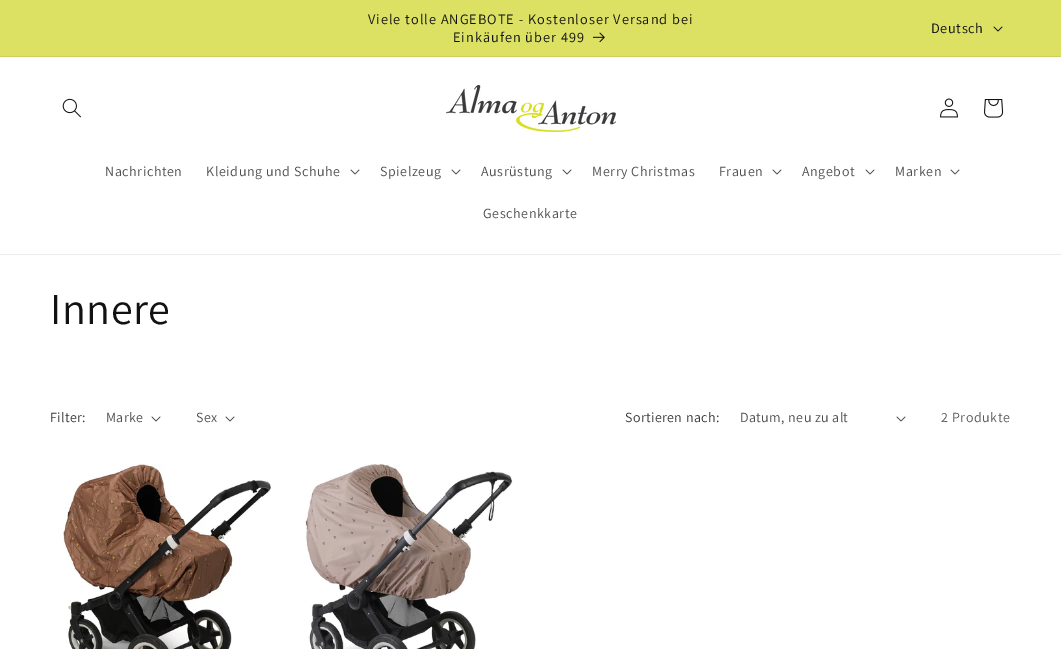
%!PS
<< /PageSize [1061 649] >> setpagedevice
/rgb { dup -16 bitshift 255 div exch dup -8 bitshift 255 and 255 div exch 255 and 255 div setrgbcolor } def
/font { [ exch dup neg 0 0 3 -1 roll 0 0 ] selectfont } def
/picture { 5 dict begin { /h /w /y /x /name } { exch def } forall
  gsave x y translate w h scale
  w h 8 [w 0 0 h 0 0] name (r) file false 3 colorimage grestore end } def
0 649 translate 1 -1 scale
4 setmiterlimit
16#FFFFFF rgb
0 0 1061 649 rectfill
16#DCE164 rgb
0 0 1061 56 rectfill
16#CCD05D rgb
0 56 1061 1 rectfill
/Assistant-Regular 14.3 font
16#121212 rgb
368 24 moveto 1 0 (Viele tolle ANGEBOTE - Kostenloser Versand bei) ashow
453 42 moveto 1 0 (Einkäufen über 499) ashow
(pic1.raw) 593 32 12 11 picture
931 33 moveto 0.6 0 (Deutsch) ashow
(pic2.raw) 993 26 10 6 picture
16#ECECEC rgb
0 254 1061 1 rectfill
(pic3.raw) 62 98 19 20 picture
(pic4.raw) 446 85 170 47 picture
(pic5.raw) 940 98 18 20 picture
(pic6.raw) 984 99 20 19 picture
/Assistant-Regular 14 font
16#4D4D4D rgb
105 176 moveto 0.6 0 (Nachrichten) ashow
206 176 moveto 0.6 0 (Kleidung und Schuhe) ashow
(pic7.raw) 350 169 10 6 picture
380 176 moveto 0.6 0 (Spielzeug) ashow
(pic7.raw) 451 169 10 6 picture
481 176 moveto 0.6 0 (Ausrüstung) ashow
(pic7.raw) 562 169 10 6 picture
592 176 moveto 0.6 0 (Merry Christmas) ashow
719 176 moveto 0.6 0 (Frauen) ashow
(pic7.raw) 772 169 10 6 picture
802 176 moveto 0.6 0 (Angebot) ashow
(pic7.raw) 865 169 10 6 picture
895 176 moveto 0.6 0 (Marken) ashow
(pic7.raw) 950 169 10 6 picture
483 218 moveto 0.6 0 (Geschenkkarte) ashow
/Assistant-Regular 44 font
16#121212 rgb
50 324 moveto 0.5 0 (Innere) ashow
/Assistant-Regular 14 font
16#363636 rgb
50 422 moveto 0.4 0 (Filter:) ashow
16#4D4D4D rgb
106 422 moveto 0.4 0 (Marke) ashow
(pic7.raw) 151 416 10 6 picture
196 422 moveto 0.4 0 (Sex) ashow
(pic7.raw) 225 416 10 6 picture
16#363636 rgb
625 422 moveto 0.4 0 (Sortieren nach:) ashow
16#4D4D4D rgb
740 422 moveto 0.4 0 (Datum, neu zu alt) ashow
(pic7.raw) 896 416 10 6 picture
16#595959 rgb
941 422 moveto 0.6 0 (2 Produkte) ashow
(pic8.raw) 63 464 208 185 picture
(pic9.raw) 304 464 209 185 picture
showpage
